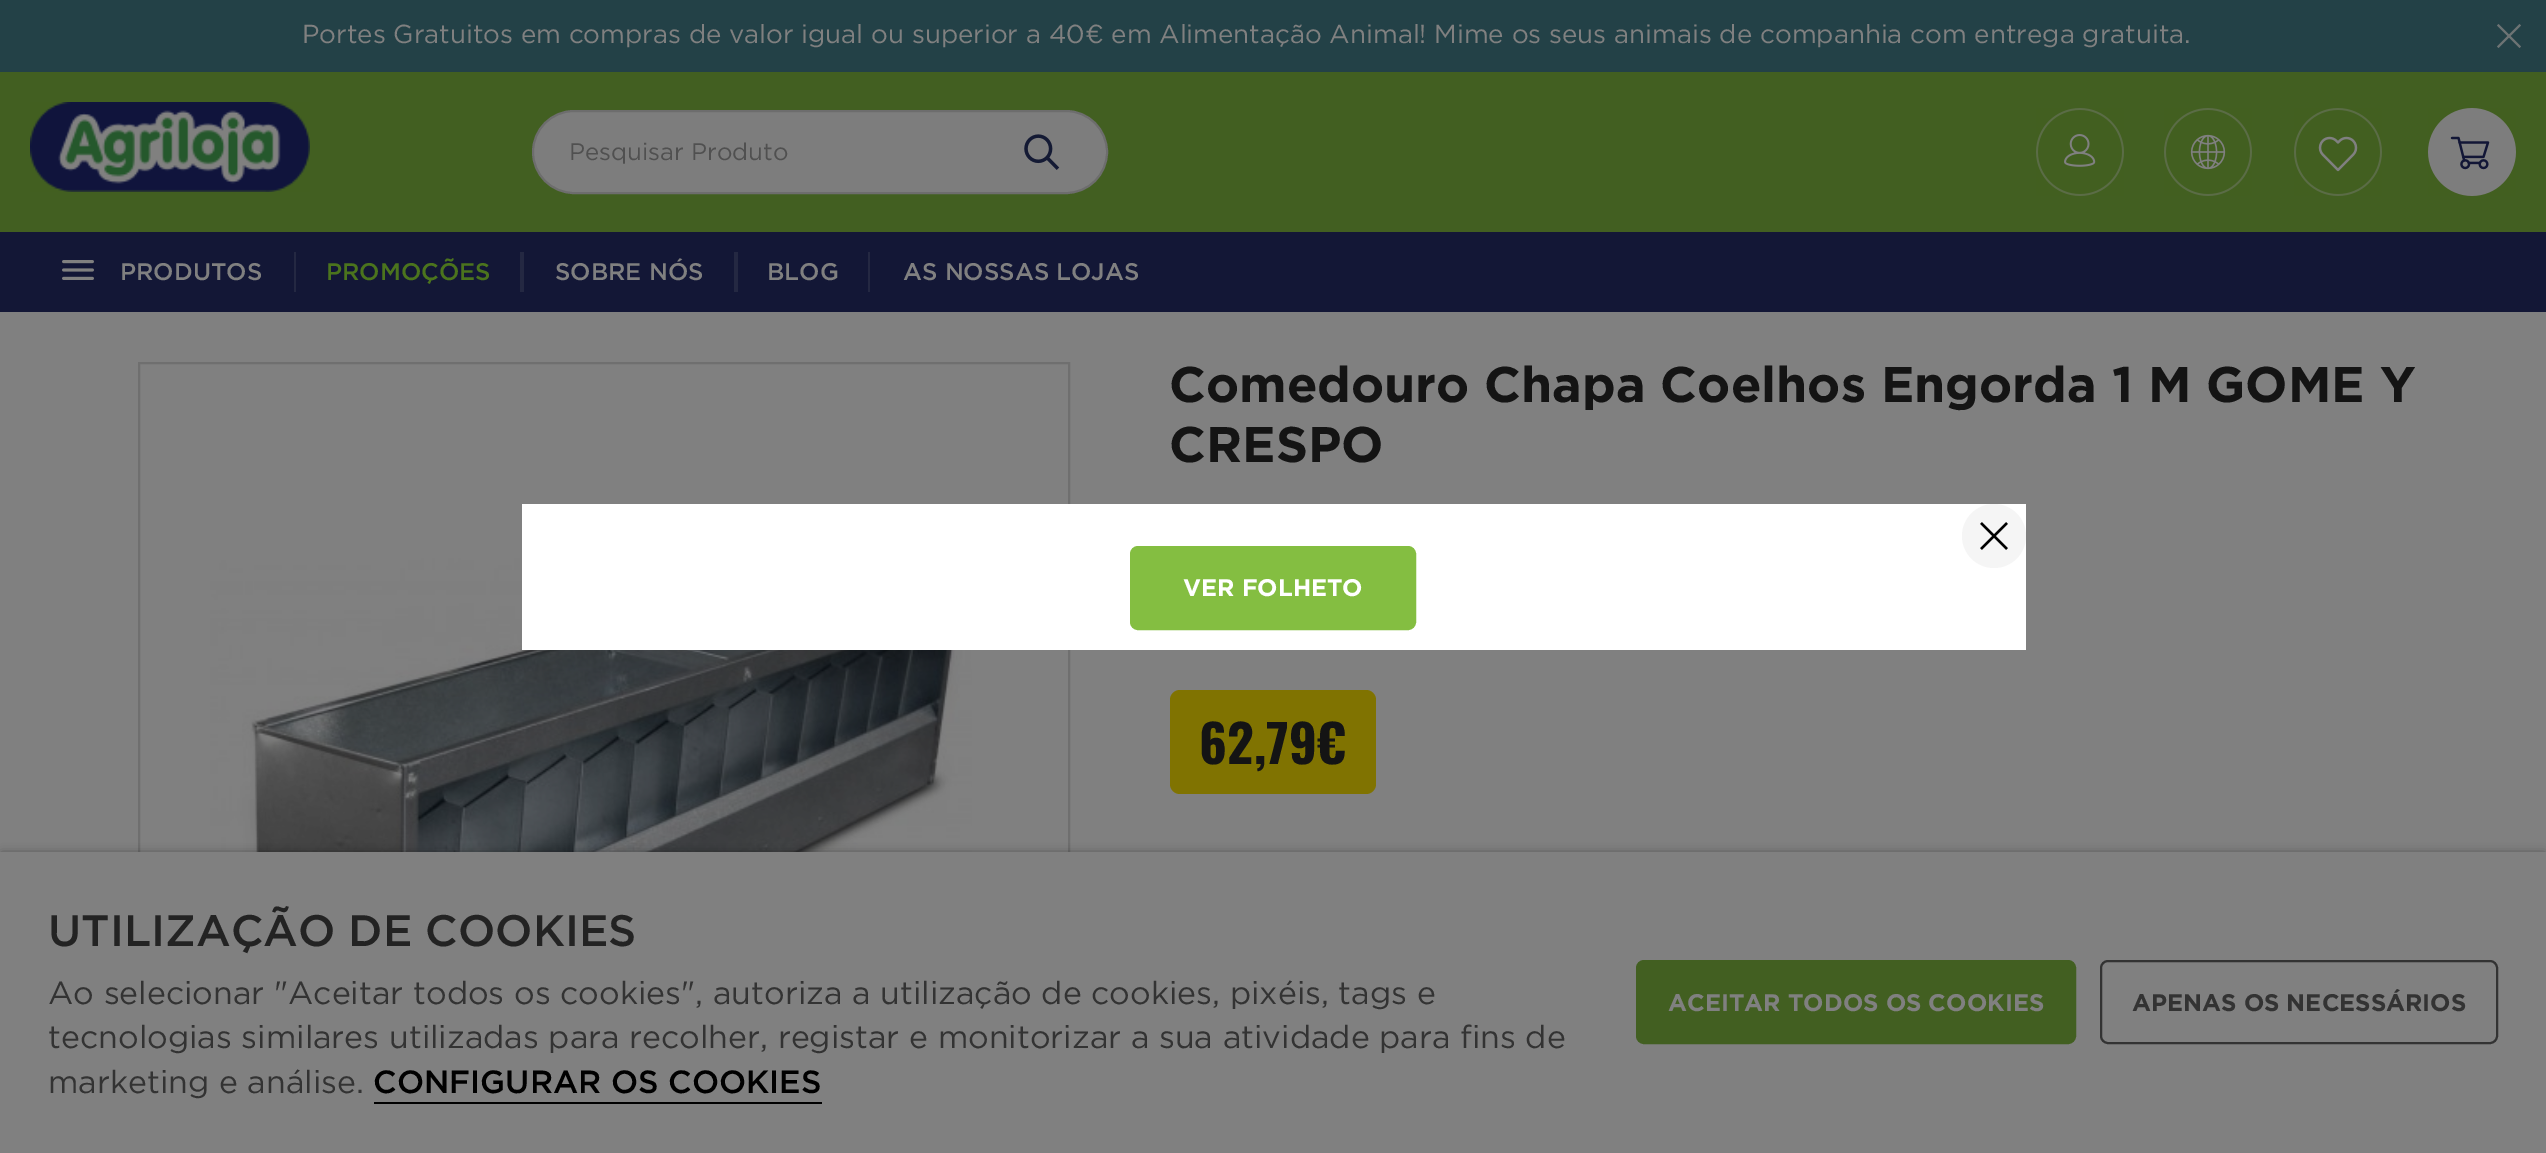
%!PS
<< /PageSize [2546 1153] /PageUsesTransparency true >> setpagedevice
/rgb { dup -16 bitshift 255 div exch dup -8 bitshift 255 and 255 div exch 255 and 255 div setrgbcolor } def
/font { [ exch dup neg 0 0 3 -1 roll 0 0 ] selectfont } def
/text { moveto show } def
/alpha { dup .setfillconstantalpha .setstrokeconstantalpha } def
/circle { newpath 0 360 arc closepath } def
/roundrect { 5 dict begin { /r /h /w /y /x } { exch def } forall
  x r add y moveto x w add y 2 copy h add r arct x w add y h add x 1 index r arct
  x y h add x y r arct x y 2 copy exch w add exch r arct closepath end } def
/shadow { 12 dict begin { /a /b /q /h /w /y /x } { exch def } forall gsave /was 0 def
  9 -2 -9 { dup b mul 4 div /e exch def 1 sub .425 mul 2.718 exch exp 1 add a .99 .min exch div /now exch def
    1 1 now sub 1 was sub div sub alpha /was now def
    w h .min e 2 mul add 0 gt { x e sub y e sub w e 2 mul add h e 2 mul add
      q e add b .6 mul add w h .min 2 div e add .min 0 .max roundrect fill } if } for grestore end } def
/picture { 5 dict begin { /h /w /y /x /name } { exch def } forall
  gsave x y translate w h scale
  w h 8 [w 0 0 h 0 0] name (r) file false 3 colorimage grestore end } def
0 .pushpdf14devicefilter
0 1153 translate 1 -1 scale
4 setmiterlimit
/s1 { /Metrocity-Regular 26 font 16#808080 rgb } def
/s2 { /Metrocity-Regular 24 font 16#505050 rgb } def
/s3 { /Metrocity-Medium 24 font 16#808080 rgb } def
/s4 { /Metrocity-Medium 24 font 16#4B741D rgb } def
/s5 { /Metrocity-Bold 50 font 16#141414 rgb } def
/s6 { /Oswald-Bold 52 font 16#141414 rgb } def
/s7 { /Metrocity-Bold 24 font 16#FFFFFF rgb } def
/s8 { /Metrocity-Medium 44 font 16#232323 rgb } def
/s9 { /Metrocity-Regular 32 font 16#333333 rgb } def
/s10 { /Metrocity-Medium 32 font 16#000000 rgb } def
/s11 { /Metrocity-Bold 24 font 16#808080 rgb } def
/s12 { /Metrocity-Bold 24 font 16#333333 rgb } def
16#808080 rgb
0 0 2546 1153 rectfill
16#425F21 rgb
0 72 2546 160 rectfill
16#234147 rgb
0 0 2546 72 rectfill
s1
(Portes Gratuitos em compras de valor igual ou superior a 40€ em Alimentação Animal! Mime os seus animais de companhia com entrega gratuita.) 302 43 text
16#6D7374 rgb
2519.5 24 moveto 2521 25.5 lineto 2498.5 48 lineto 2497 46.5 lineto closepath fill
2497 25.5 moveto 2498.5 24 lineto 2521 46.5 lineto 2519.5 48 lineto closepath fill
(pic1.raw) 30 102 280 90 picture
16#7D7D7D rgb
533 111 574 82 41 roundrect gsave fill grestore
16#6D6D6D rgb
2 setlinewidth
stroke
s2
(Pesquisar Produto) 569 160 text
(pic2.raw) 1024 134 36 36 picture
(pic3.raw) 2036 108 88 88 picture
(pic4.raw) 2164 108 88 88 picture
(pic5.raw) 2294 108 88 88 picture
(pic6.raw) 2428 108 88 88 picture
16#131736 rgb
0 232 2546 80 rectfill
(pic7.raw) 62 260 32 20 picture
s3
(PRODUTOS) 120 280 text
16#242842 rgb
294 252 2 40 rectfill
s4
(PROMOÇÕES) 326 280 text
16#242842 rgb
520 252 4 40 rectfill
s3
(SOBRE NÓS) 555 280 text
16#242842 rgb
734 252 4 40 rectfill
s3
(BLOG) 767 280 text
16#242842 rgb
868 252 2 40 rectfill
s3
(AS NOSSAS LOJAS) 903 280 text
16#6F6F6F rgb
139 363 930 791 rectstroke
(pic8.raw) 210 558 762 294 picture
s5
(Comedouro Chapa Coelhos Engorda 1 M GOME Y) 1169 402 text
(CRESPO) 1169 462 text
16#807301 rgb
1170 690 206 104 10 roundrect fill
s6
(62,79€) 1199 764 text
16#FFFFFF rgb
522 504 1504 146 rectfill
16#F5F5F5 rgb
1994 536 32 circle fill
(pic9.raw) 1980 522 28 28 picture
16#84BE41 rgb
1131 547 284 82 7 roundrect gsave fill grestore
stroke
s7
(VER FOLHETO) 1183 596 text
16#000000 rgb
2 854 2542 298 0 5 0.5 shadow
16#808080 rgb
0 852 2546 301 rectfill
s8
(UTILIZAÇÃO DE COOKIES) 48 946 text
s9
(Ao selecionar "Aceitar todos os cookies", autoriza a utilização de cookies, pixéis, tags e) 48 1004 text
(tecnologias similares utilizadas para recolher, registar e monitorizar a sua atividade para fins de) 48 1048 text
(marketing e análise.) 48 1093 text
16#000000 rgb
374 1102 448 2 rectfill
s10
(CONFIGURAR OS COOKIES) 373 1093 text
16#425F21 rgb
1637 961 438 82 7 roundrect gsave fill grestore
stroke
s11
(ACEITAR TODOS OS COOKIES) 1668 1011 text
16#333333 rgb
2101 961 396 82 7 roundrect stroke
(APENAS OS NECESSÁRIOS) 2132 1011 text
.poppdf14devicefilter showpage
